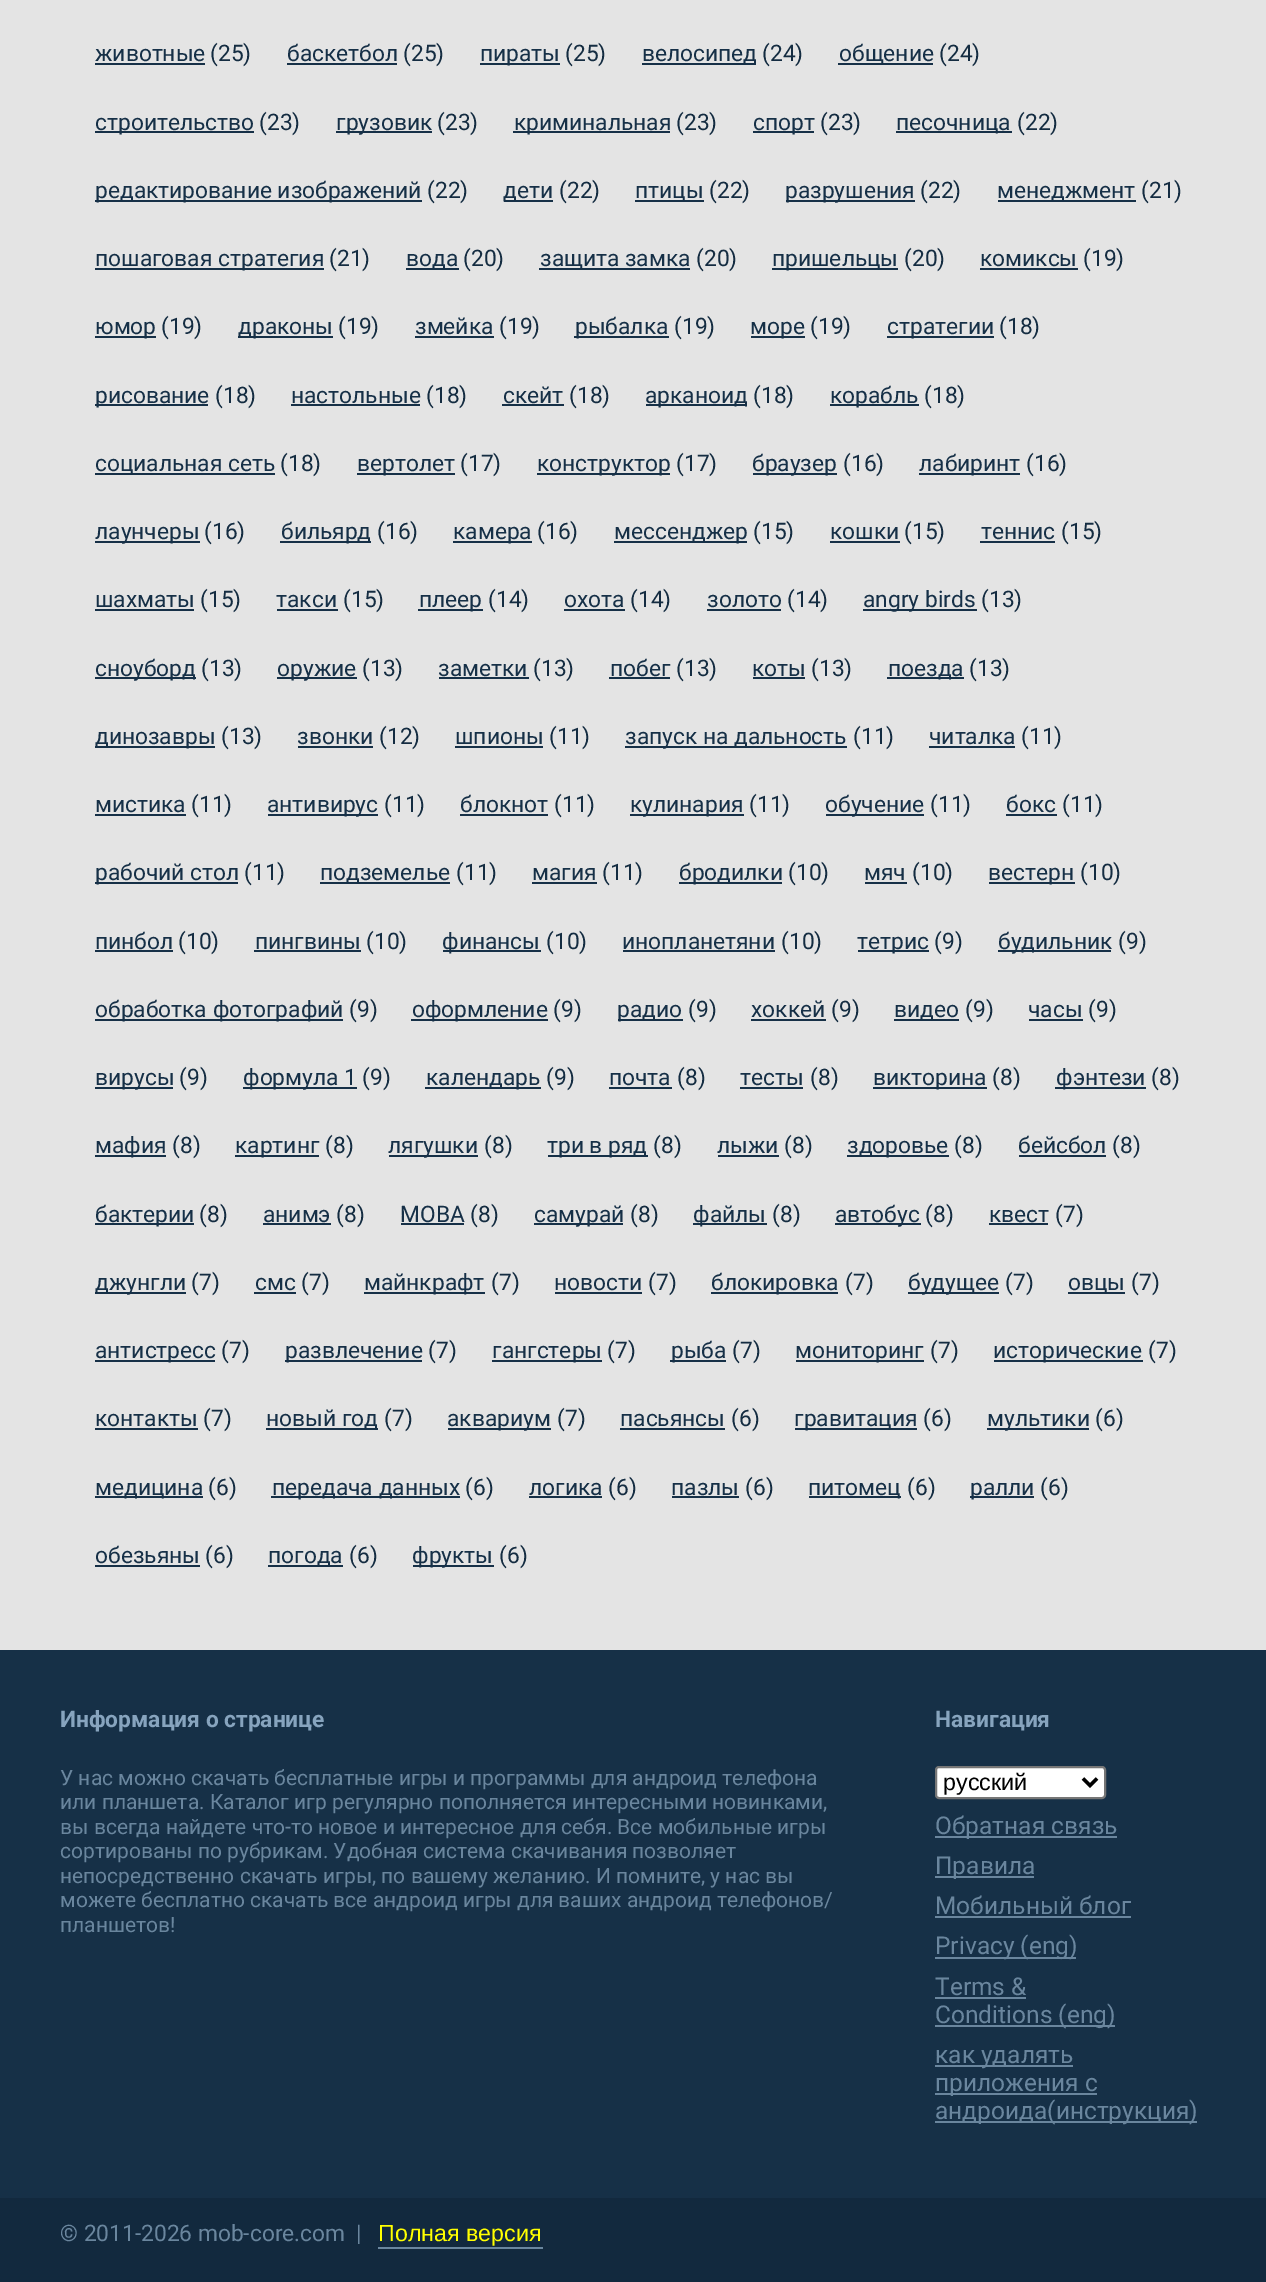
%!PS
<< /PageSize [1266 2282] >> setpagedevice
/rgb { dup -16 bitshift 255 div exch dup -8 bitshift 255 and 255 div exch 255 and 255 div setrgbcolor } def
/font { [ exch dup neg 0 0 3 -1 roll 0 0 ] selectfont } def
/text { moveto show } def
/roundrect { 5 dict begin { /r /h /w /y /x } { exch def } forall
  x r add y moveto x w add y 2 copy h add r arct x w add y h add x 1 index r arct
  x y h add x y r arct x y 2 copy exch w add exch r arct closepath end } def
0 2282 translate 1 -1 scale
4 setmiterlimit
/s1 { /Roboto-Regular 22.75 font 16#163047 rgb } def
/s2 { /Roboto-Regular 22.75 font 16#142C41 rgb } def
/s3 { /Roboto-Bold 22.75 font 16#87A4BE rgb } def
/s4 { /Roboto-Regular 21 font 16#6A869E rgb } def
/s5 { /LiberationSans-Regular 23.25 font 16#000000 rgb } def
/s6 { /Roboto-Regular 24.5 font 16#6A869E rgb } def
/s7 { /Roboto-Regular 22.75 font 16#6A869E rgb } def
/s8 { /LiberationSans-Regular 23.25 font 16#FFFF00 rgb } def
16#E4E4E4 rgb
0 0 1266 2282 rectfill
s1
(животные) 95 61 text
95 63 110 2 rectfill
s2
(\(25\)) 210 61 text
s1
(баскетбол) 287 61 text
287 63 110 2 rectfill
s2
(\(25\)) 403 61 text
16#163047 rgb
480 63 80 2 rectfill
(пираты) 480 61 text
s2
(\(25\)) 565 61 text
16#163047 rgb
642 63 114 2 rectfill
(велосипед) 642 61 text
s2
(\(24\)) 762 61 text
16#163047 rgb
838 63 95 2 rectfill
(общение) 839 61 text
s2
(\(24\)) 939 61 text
16#163047 rgb
95 131 159 2 rectfill
(строительство) 95 130 text
s2
(\(23\)) 259 130 text
16#163047 rgb
336 131 96 2 rectfill
(грузовик) 336 130 text
s2
(\(23\)) 437 130 text
16#163047 rgb
513 131 157 2 rectfill
(криминальная) 514 130 text
s2
(\(23\)) 676 130 text
16#163047 rgb
753 131 61 2 rectfill
(спорт) 753 130 text
s2
(\(23\)) 820 130 text
16#163047 rgb
896 131 116 2 rectfill
(песочница) 896 130 text
s2
(\(22\)) 1017 130 text
16#163047 rgb
95 200 327 2 rectfill
(редактирование изображений) 95 198 text
s2
(\(22\)) 427 198 text
16#163047 rgb
504 200 49 2 rectfill
(дети) 503 198 text
s2
(\(22\)) 559 198 text
16#163047 rgb
635 200 69 2 rectfill
(птицы) 635 198 text
s2
(\(22\)) 709 198 text
16#163047 rgb
786 200 129 2 rectfill
(разрушения) 785 198 text
s2
(\(22\)) 920 198 text
16#163047 rgb
998 200 138 2 rectfill
(менеджмент) 997 198 text
s2
(\(21\)) 1141 198 text
16#163047 rgb
95 268 229 2 rectfill
(пошаговая стратегия) 95 266 text
s2
(\(21\)) 329 266 text
16#163047 rgb
406 268 53 2 rectfill
(вода) 406 266 text
s2
(\(20\)) 463 266 text
16#163047 rgb
539 268 151 2 rectfill
(защита замка) 540 266 text
s2
(\(20\)) 696 266 text
16#163047 rgb
772 268 126 2 rectfill
(пришельцы) 772 266 text
s2
(\(20\)) 904 266 text
s1
(комиксы) 980 266 text
980 268 98 2 rectfill
s2
(\(19\)) 1083 266 text
16#163047 rgb
95 336 61 2 rectfill
(юмор) 95 334 text
s2
(\(19\)) 161 334 text
16#163047 rgb
238 336 95 2 rectfill
(драконы) 238 334 text
s2
(\(19\)) 338 334 text
s1
(змейка) 415 334 text
415 336 79 2 rectfill
s2
(\(19\)) 499 334 text
16#163047 rgb
574 336 95 2 rectfill
(рыбалка) 575 334 text
s2
(\(19\)) 674 334 text
16#163047 rgb
751 336 54 2 rectfill
(море) 750 334 text
s2
(\(19\)) 810 334 text
16#163047 rgb
887 336 107 2 rectfill
(стратегии) 887 334 text
s2
(\(18\)) 999 334 text
16#163047 rgb
95 404 113 2 rectfill
(рисование) 95 403 text
s2
(\(18\)) 215 403 text
s1
(настольные) 291 403 text
291 404 129 2 rectfill
s2
(\(18\)) 426 403 text
s1
(скейт) 503 403 text
502 404 62 2 rectfill
s2
(\(18\)) 569 403 text
16#163047 rgb
646 404 101 2 rectfill
(арканоид) 645 403 text
s2
(\(18\)) 753 403 text
16#163047 rgb
830 404 89 2 rectfill
(корабль) 830 403 text
s2
(\(18\)) 924 403 text
16#163047 rgb
95 473 180 2 rectfill
(социальная сеть) 95 471 text
s2
(\(18\)) 280 471 text
16#163047 rgb
357 473 98 2 rectfill
(вертолет) 357 471 text
s2
(\(17\)) 460 471 text
16#163047 rgb
537 473 133 2 rectfill
(конструктор) 537 471 text
s2
(\(17\)) 676 471 text
16#163047 rgb
753 473 84 2 rectfill
(браузер) 752 471 text
s2
(\(16\)) 843 471 text
16#163047 rgb
919 473 101 2 rectfill
(лабиринт) 919 471 text
s2
(\(16\)) 1026 471 text
16#163047 rgb
95 541 105 2 rectfill
(лаунчеры) 95 539 text
s2
(\(16\)) 204 539 text
16#163047 rgb
280 541 91 2 rectfill
(бильярд) 281 539 text
s2
(\(16\)) 377 539 text
16#163047 rgb
453 541 79 2 rectfill
(камера) 453 539 text
s2
(\(16\)) 537 539 text
16#163047 rgb
614 541 133 2 rectfill
(мессенджер) 614 539 text
s2
(\(15\)) 753 539 text
s1
(кошки) 830 539 text
830 541 70 2 rectfill
s2
(\(15\)) 904 539 text
s1
(теннис) 981 539 text
980 541 75 2 rectfill
s2
(\(15\)) 1061 539 text
s1
(шахматы) 95 607 text
95 609 99 2 rectfill
s2
(\(15\)) 200 607 text
s1
(такси) 276 607 text
277 609 61 2 rectfill
s2
(\(15\)) 343 607 text
16#163047 rgb
418 609 65 2 rectfill
(плеер) 419 607 text
s2
(\(14\)) 488 607 text
s1
(охота) 564 607 text
564 609 61 2 rectfill
s2
(\(14\)) 630 607 text
s1
(золото) 707 607 text
707 609 74 2 rectfill
s2
(\(14\)) 787 607 text
16#163047 rgb
863 609 114 2 rectfill
(angry birds) 863 607 text
s2
(\(13\)) 981 607 text
16#163047 rgb
95 677 101 2 rectfill
(сноуборд) 95 676 text
s2
(\(13\)) 201 676 text
16#163047 rgb
277 677 80 2 rectfill
(оружие) 277 676 text
s2
(\(13\)) 362 676 text
s1
(заметки) 438 676 text
439 677 90 2 rectfill
s2
(\(13\)) 533 676 text
s1
(побег) 610 676 text
609 677 61 2 rectfill
s2
(\(13\)) 676 676 text
s1
(коты) 752 676 text
753 677 52 2 rectfill
s2
(\(13\)) 811 676 text
16#163047 rgb
887 677 77 2 rectfill
(поезда) 888 676 text
s2
(\(13\)) 969 676 text
16#163047 rgb
95 746 120 2 rectfill
(динозавры) 95 744 text
s2
(\(13\)) 221 744 text
s1
(звонки) 297 744 text
298 746 75 2 rectfill
s2
(\(12\)) 379 744 text
s1
(шпионы) 455 744 text
455 746 88 2 rectfill
s2
(\(11\)) 549 744 text
16#163047 rgb
625 746 222 2 rectfill
(запуск на дальность) 625 744 text
s2
(\(11\)) 853 744 text
s1
(читалка) 929 744 text
929 746 86 2 rectfill
s2
(\(11\)) 1021 744 text
s1
(мистика) 95 812 text
95 814 91 2 rectfill
s2
(\(11\)) 191 812 text
16#163047 rgb
268 814 110 2 rectfill
(антивирус) 267 812 text
s2
(\(11\)) 384 812 text
s1
(блокнот) 460 812 text
460 814 88 2 rectfill
s2
(\(11\)) 554 812 text
16#163047 rgb
630 814 114 2 rectfill
(кулинария) 630 812 text
s2
(\(11\)) 749 812 text
16#163047 rgb
826 814 98 2 rectfill
(обучение) 825 812 text
s2
(\(11\)) 930 812 text
s1
(бокс) 1006 812 text
1006 814 51 2 rectfill
s2
(\(11\)) 1062 812 text
16#163047 rgb
95 882 143 2 rectfill
(рабочий стол) 95 880 text
s2
(\(11\)) 244 880 text
16#163047 rgb
320 882 130 2 rectfill
(подземелье) 320 880 text
s2
(\(11\)) 456 880 text
s1
(магия) 532 880 text
532 882 65 2 rectfill
s2
(\(11\)) 602 880 text
16#163047 rgb
679 882 103 2 rectfill
(бродилки) 679 880 text
s2
(\(10\)) 788 880 text
s1
(мяч) 864 880 text
865 882 42 2 rectfill
s2
(\(10\)) 912 880 text
16#163047 rgb
989 882 86 2 rectfill
(вестерн) 988 880 text
s2
(\(10\)) 1080 880 text
s1
(пинбол) 95 949 text
95 950 78 2 rectfill
s2
(\(10\)) 178 949 text
s1
(пингвины) 255 949 text
254 950 107 2 rectfill
s2
(\(10\)) 366 949 text
16#163047 rgb
443 950 98 2 rectfill
(финансы) 442 949 text
s2
(\(10\)) 546 949 text
s1
(инопланетяни) 622 949 text
623 950 152 2 rectfill
s2
(\(10\)) 781 949 text
16#163047 rgb
858 950 71 2 rectfill
(тетрис) 857 949 text
s2
(\(9\)) 934 949 text
16#163047 rgb
998 950 113 2 rectfill
(будильник) 998 949 text
s2
(\(9\)) 1118 949 text
16#163047 rgb
95 1019 248 2 rectfill
(обработка фотографий) 95 1017 text
s2
(\(9\)) 349 1017 text
16#163047 rgb
411 1019 137 2 rectfill
(оформление) 412 1017 text
s2
(\(9\)) 553 1017 text
16#163047 rgb
618 1019 65 2 rectfill
(радио) 617 1017 text
s2
(\(9\)) 688 1017 text
s1
(хоккей) 751 1017 text
751 1019 75 2 rectfill
s2
(\(9\)) 831 1017 text
16#163047 rgb
894 1019 65 2 rectfill
(видео) 894 1017 text
s2
(\(9\)) 965 1017 text
s1
(часы) 1028 1017 text
1029 1019 54 2 rectfill
s2
(\(9\)) 1088 1017 text
16#163047 rgb
95 1087 78 2 rectfill
(вирусы) 95 1085 text
s2
(\(9\)) 179 1085 text
16#163047 rgb
243 1087 114 2 rectfill
(формула 1) 243 1085 text
s2
(\(9\)) 362 1085 text
16#163047 rgb
425 1087 116 2 rectfill
(календарь) 426 1085 text
s2
(\(9\)) 546 1085 text
s1
(почта) 609 1085 text
609 1087 63 2 rectfill
s2
(\(8\)) 677 1085 text
s1
(тесты) 740 1085 text
740 1087 63 2 rectfill
s2
(\(8\)) 810 1085 text
16#163047 rgb
873 1087 114 2 rectfill
(викторина) 873 1085 text
s2
(\(8\)) 992 1085 text
16#163047 rgb
1055 1087 91 2 rectfill
(фэнтези) 1056 1085 text
s2
(\(8\)) 1151 1085 text
16#163047 rgb
95 1155 71 2 rectfill
(мафия) 95 1153 text
s2
(\(8\)) 172 1153 text
16#163047 rgb
235 1155 84 2 rectfill
(картинг) 235 1153 text
s2
(\(8\)) 325 1153 text
16#163047 rgb
389 1155 89 2 rectfill
(лягушки) 388 1153 text
s2
(\(8\)) 484 1153 text
16#163047 rgb
548 1155 100 2 rectfill
(три в ряд) 547 1153 text
s2
(\(8\)) 653 1153 text
s1
(лыжи) 717 1153 text
718 1155 61 2 rectfill
s2
(\(8\)) 784 1153 text
16#163047 rgb
847 1155 102 2 rectfill
(здоровье) 847 1153 text
s2
(\(8\)) 954 1153 text
s1
(бейсбол) 1018 1153 text
1019 1155 87 2 rectfill
s2
(\(8\)) 1112 1153 text
16#163047 rgb
95 1223 99 2 rectfill
(бактерии) 95 1222 text
s2
(\(8\)) 199 1222 text
s1
(анимэ) 263 1222 text
263 1223 68 2 rectfill
s2
(\(8\)) 336 1222 text
s1
(MOBA) 400 1222 text
401 1223 63 2 rectfill
s2
(\(8\)) 470 1222 text
16#163047 rgb
534 1223 89 2 rectfill
(самурай) 534 1222 text
s2
(\(8\)) 630 1222 text
16#163047 rgb
693 1223 74 2 rectfill
(файлы) 693 1222 text
s2
(\(8\)) 772 1222 text
16#163047 rgb
835 1223 86 2 rectfill
(автобус) 835 1222 text
s2
(\(8\)) 925 1222 text
s1
(квест) 989 1222 text
989 1223 59 2 rectfill
s2
(\(7\)) 1055 1222 text
16#163047 rgb
95 1292 91 2 rectfill
(джунгли) 95 1290 text
s2
(\(7\)) 191 1290 text
s1
(смс) 255 1290 text
254 1292 42 2 rectfill
s2
(\(7\)) 301 1290 text
16#163047 rgb
364 1292 121 2 rectfill
(майнкрафт) 364 1290 text
s2
(\(7\)) 491 1290 text
s1
(новости) 554 1290 text
555 1292 87 2 rectfill
s2
(\(7\)) 648 1290 text
16#163047 rgb
711 1292 127 2 rectfill
(блокировка) 711 1290 text
s2
(\(7\)) 845 1290 text
16#163047 rgb
908 1292 91 2 rectfill
(будущее) 908 1290 text
s2
(\(7\)) 1005 1290 text
16#163047 rgb
1068 1292 57 2 rectfill
(овцы) 1068 1290 text
s2
(\(7\)) 1131 1290 text
16#163047 rgb
95 1360 120 2 rectfill
(антистресс) 95 1358 text
s2
(\(7\)) 221 1358 text
16#163047 rgb
285 1360 137 2 rectfill
(развлечение) 285 1358 text
s2
(\(7\)) 428 1358 text
16#163047 rgb
492 1360 110 2 rectfill
(гангстеры) 492 1358 text
s2
(\(7\)) 607 1358 text
16#163047 rgb
670 1360 56 2 rectfill
(рыба) 671 1358 text
s2
(\(7\)) 732 1358 text
16#163047 rgb
796 1360 128 2 rectfill
(мониторинг) 795 1358 text
s2
(\(7\)) 930 1358 text
16#163047 rgb
994 1360 149 2 rectfill
(исторические) 993 1358 text
s2
(\(7\)) 1148 1358 text
s1
(контакты) 95 1426 text
95 1428 103 2 rectfill
s2
(\(7\)) 203 1426 text
16#163047 rgb
266 1428 112 2 rectfill
(новый год) 266 1426 text
s2
(\(7\)) 384 1426 text
16#163047 rgb
448 1428 103 2 rectfill
(аквариум) 447 1426 text
s2
(\(7\)) 557 1426 text
s1
(пасьянсы) 620 1426 text
620 1428 105 2 rectfill
s2
(\(6\)) 731 1426 text
16#163047 rgb
795 1428 122 2 rectfill
(гравитация) 794 1426 text
s2
(\(6\)) 923 1426 text
16#163047 rgb
987 1428 102 2 rectfill
(мультики) 987 1426 text
s2
(\(6\)) 1095 1426 text
16#163047 rgb
95 1496 108 2 rectfill
(медицина) 95 1495 text
s2
(\(6\)) 208 1495 text
16#163047 rgb
271 1496 189 2 rectfill
(передача данных) 272 1495 text
s2
(\(6\)) 465 1495 text
s1
(логика) 529 1495 text
529 1496 73 2 rectfill
s2
(\(6\)) 608 1495 text
s1
(пазлы) 671 1495 text
672 1496 67 2 rectfill
s2
(\(6\)) 745 1495 text
16#163047 rgb
809 1496 92 2 rectfill
(питомец) 808 1495 text
s2
(\(6\)) 907 1495 text
16#163047 rgb
970 1496 64 2 rectfill
(ралли) 970 1495 text
s2
(\(6\)) 1040 1495 text
s1
(обезьяны) 95 1563 text
95 1565 105 2 rectfill
s2
(\(6\)) 205 1563 text
16#163047 rgb
268 1565 75 2 rectfill
(погода) 268 1563 text
s2
(\(6\)) 349 1563 text
16#163047 rgb
413 1565 81 2 rectfill
(фрукты) 412 1563 text
s2
(\(6\)) 499 1563 text
16#163047 rgb
0 1650 1266 548 rectfill
s3
(Информация о странице) 60 1727 text
s4
(У нас можно скачать бесплатные игры и программы для андроид телефона) 60 1785 text
(или планшета. Каталог игр регулярно пополняется интересными новинками,) 60 1809 text
(вы всегда найдете что-то новое и интересное для себя. Все мобильные игры) 60 1834 text
(сортированы по рубрикам. Удобная система скачивания позволяет) 60 1858 text
(непосредственно скачать игры, по вашему желанию. И помните, у нас вы) 60 1883 text
(можете бесплатно скачать все андроид игры для ваших андроид телефонов/) 60 1907 text
(планшетов!) 60 1932 text
s3
(Навигация) 935 1727 text
16#FFFFFF rgb
936 1767 169 31 3 roundrect gsave fill grestore
16#767676 rgb
2 setlinewidth
stroke
16#000000 rgb
3.5 setlinewidth
1083 1778.5 moveto 1090 1785.5 lineto 1097 1778.5 lineto stroke
s5
(русский) 943 1790 text
16#6A869E rgb
935 1836 182 2 rectfill
s6
(Обратная связь) 935 1834 text
935 1876 99 2 rectfill
(Правила) 935 1874 text
(Мобильный блог) 935 1914 text
935 1916 196 2 rectfill
935 1957 141 2 rectfill
(Privacy \(eng\)) 935 1954 text
(Terms &) 935 1995 text
935 1997 91 2 rectfill
935 2025 180 2 rectfill
(Conditions \(eng\)) 935 2023 text
935 2065 138 2 rectfill
(как удалять) 935 2063 text
935 2093 162 2 rectfill
(приложения с) 935 2091 text
935 2121 262 2 rectfill
(андроида\(инструкция\)) 935 2119 text
16#12293E rgb
0 2198 1266 84 rectfill
s7
(© 2011-2026 mob-core.com  |) 60 2241 text
378 2247 165 2 rectfill
s8
(Полная версия) 378 2241 text
showpage
